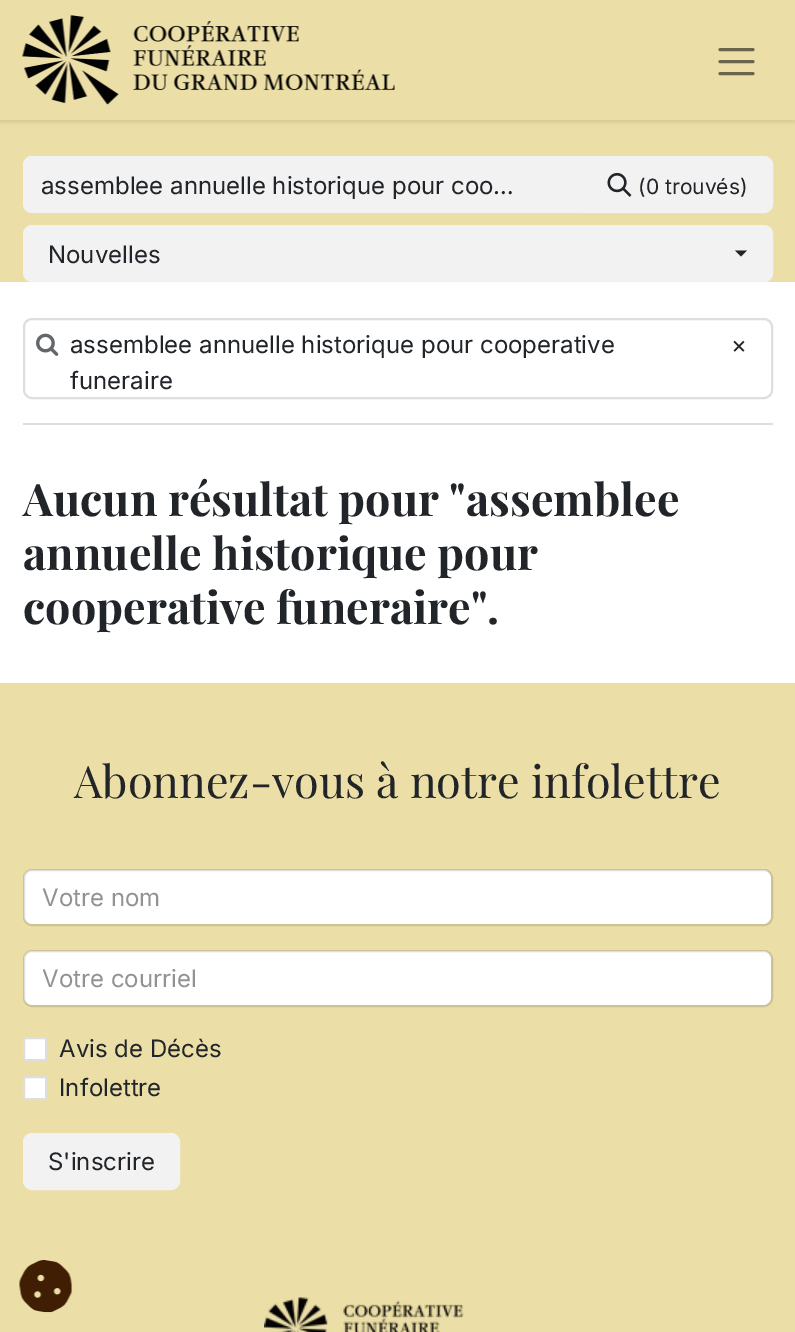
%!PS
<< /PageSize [795 1332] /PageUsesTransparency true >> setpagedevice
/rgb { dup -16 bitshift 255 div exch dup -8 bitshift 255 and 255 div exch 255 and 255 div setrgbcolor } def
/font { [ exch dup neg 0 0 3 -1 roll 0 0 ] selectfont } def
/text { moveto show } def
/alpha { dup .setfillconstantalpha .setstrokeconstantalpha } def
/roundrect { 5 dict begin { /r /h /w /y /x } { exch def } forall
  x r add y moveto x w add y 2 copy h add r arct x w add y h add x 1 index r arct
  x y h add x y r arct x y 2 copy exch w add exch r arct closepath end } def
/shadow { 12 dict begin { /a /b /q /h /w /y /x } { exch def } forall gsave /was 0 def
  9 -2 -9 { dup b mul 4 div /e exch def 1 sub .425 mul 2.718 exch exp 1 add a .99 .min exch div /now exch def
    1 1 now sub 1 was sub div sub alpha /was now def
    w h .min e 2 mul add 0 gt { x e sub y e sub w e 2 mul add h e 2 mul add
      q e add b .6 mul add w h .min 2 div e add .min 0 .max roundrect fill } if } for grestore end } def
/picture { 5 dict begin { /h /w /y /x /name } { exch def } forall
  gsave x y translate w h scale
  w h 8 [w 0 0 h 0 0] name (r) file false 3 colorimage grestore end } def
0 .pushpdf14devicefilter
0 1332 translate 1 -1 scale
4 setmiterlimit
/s1 { /Inter-Regular 24 font 16#212529 rgb } def
/s2 { /Inter-Regular 21 font 16#212529 rgb } def
/s3 { /PlayfairDisplay-Bold 44.9 font 16#212529 rgb } def
/s4 { /PlayfairDisplay-Regular 44.9 font 16#212529 rgb } def
/s5 { /Inter-Regular 24 font 16#909294 rgb } def
16#FFFFFF rgb
0 0 795 1332 rectfill
16#EBDEA6 rgb
0 120 795 162 rectfill
16#000000 rgb
0 2 795 120 0 2 0.1 shadow
16#EBDEA6 rgb
0 0 795 120 rectfill
(pic1.raw) 22 15 373 90 picture
16#6A644B rgb
3 setlinewidth
1 setlinecap
720 49.5 moveto 753 49.5 lineto 720 61.5 moveto 753 61.5 lineto 720 73.5 moveto 753 73.5 lineto stroke
16#F3F2F2 rgb
32 156 moveto 584 156 lineto 584 213 lineto 32 213 lineto 27 213 23 209 23 204 curveto 23 165 lineto 23 160 27 156 32 156 curveto closepath fill
s1
(assemblee annuelle historique pour coo…) 41 194 text
16#F3F2F2 rgb
583 157 moveto 764 157 lineto 768.5 157 772 160.5 772 165 curveto 772 204 lineto 772 208.5 768.5 212 764 212 curveto 583 212 lineto closepath gsave fill grestore
2 setlinewidth
0 setlinecap
stroke
(pic2.raw) 607 172 25 25 picture
s2
(\(0 trouvés\)) 638 194 text
16#F3F2F2 rgb
24 226 748 55 8 roundrect gsave fill grestore
stroke
s1
(Nouvelles) 48 263 text
735 250.5 moveto 747 250.5 lineto 741 256.5 lineto closepath fill
16#DEDEDF rgb
24 319 748 79 8 roundrect stroke
(pic3.raw) 36 333 23 23 picture
s1
(assemblee annuelle historique pour cooperative) 70 353 text
(×) 731 353 text
(funeraire) 70 389 text
16#DEDEDF rgb
23 423 750 2 rectfill
s3
(Aucun résultat pour "assemblee) 23 516 text
(annuelle historique pour) 23 570 text
(cooperative funeraire".) 23 624 text
16#EBDEA6 rgb
0 683 795 649 rectfill
s4
(Abonnez-vous à notre infolettre) 74 798 text
16#FFFFFF rgb
24 870 747 54 8 roundrect fill
0.15 alpha
16#212529 rgb
24 870 748 55 8 roundrect stroke
1 alpha
s5
(Votre nom) 42 906 text
16#FFFFFF rgb
24 951 747 54 8 roundrect fill
0.15 alpha
16#212529 rgb
24 951 748 55 8 roundrect stroke
1 alpha
s5
(Votre courriel) 42 987 text
16#FFFFFF rgb
24 1038 moveto 46 1038 lineto 46 1060 lineto 24 1060 lineto closepath gsave fill grestore
16#DEDEDF rgb
stroke
s1
(Avis de Décès) 59 1057 text
16#FFFFFF rgb
24 1077 moveto 46 1077 lineto 46 1099 lineto 24 1099 lineto closepath gsave fill grestore
16#DEDEDF rgb
stroke
s1
(Infolettre) 59 1096 text
16#F3F2F2 rgb
24 1134 155 55 8 roundrect gsave fill grestore
stroke
s1
(S'inscrire) 48 1170 text
(pic4.raw) 264 1297 200 35 picture
(pic5.raw) 19 1260 54 53 picture
.poppdf14devicefilter showpage
